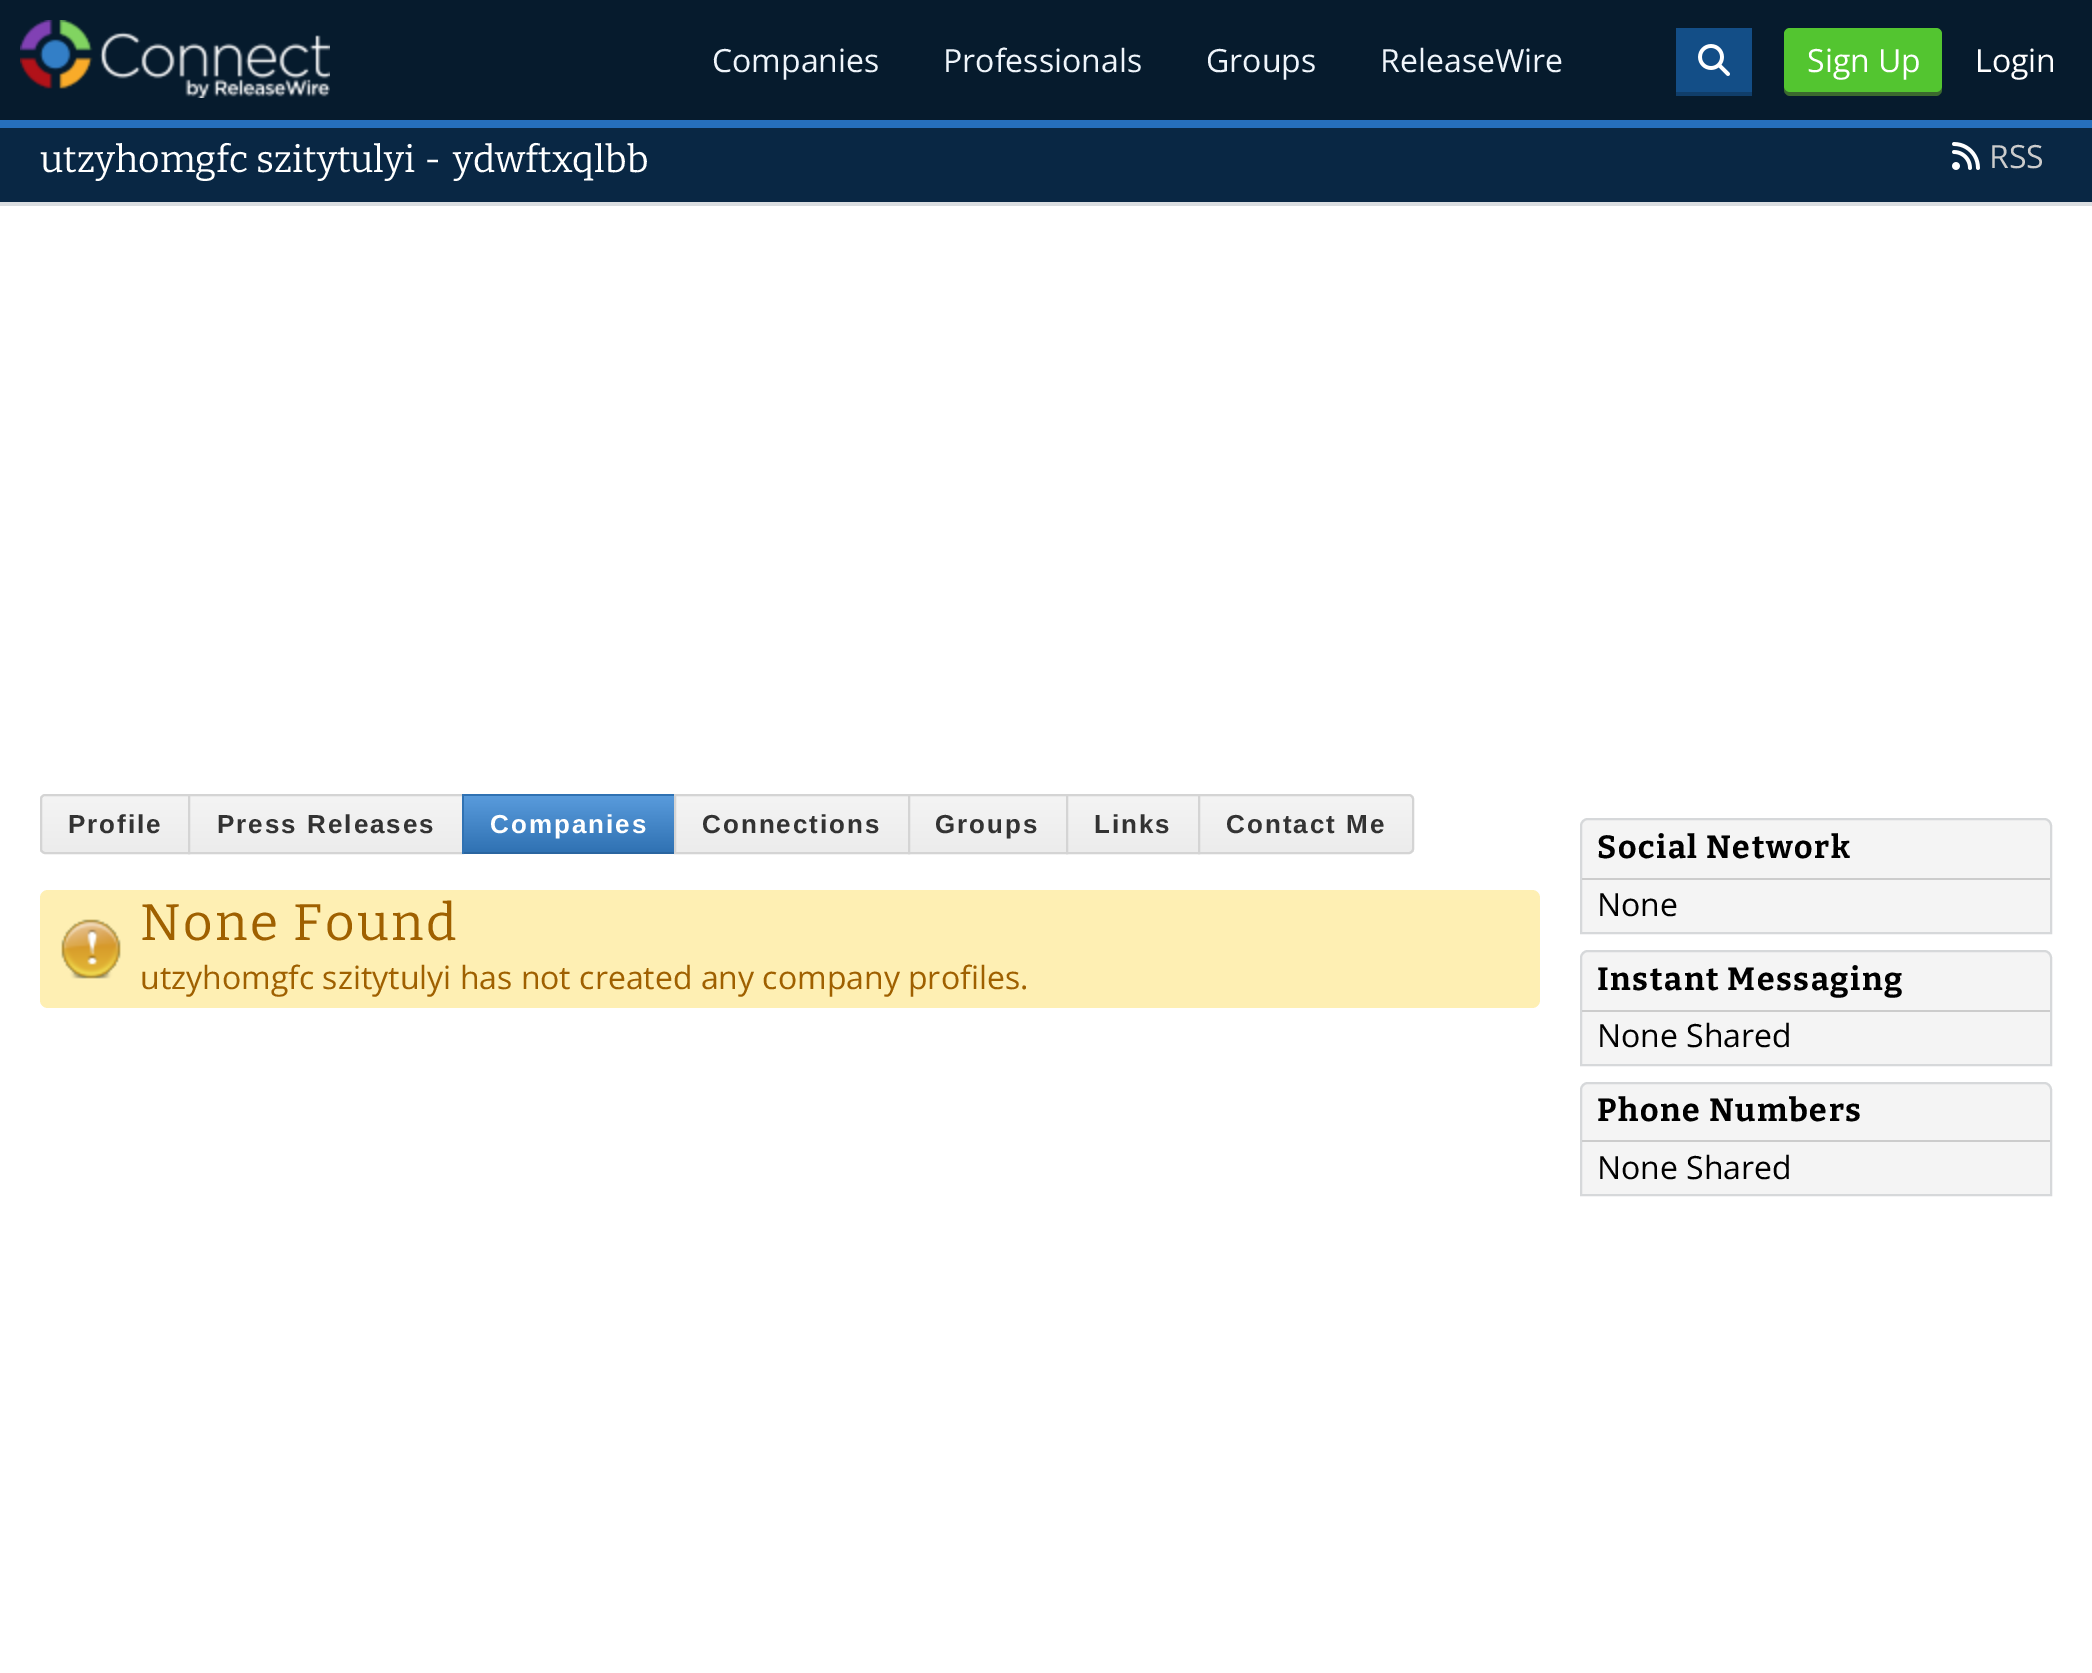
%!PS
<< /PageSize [2092 1673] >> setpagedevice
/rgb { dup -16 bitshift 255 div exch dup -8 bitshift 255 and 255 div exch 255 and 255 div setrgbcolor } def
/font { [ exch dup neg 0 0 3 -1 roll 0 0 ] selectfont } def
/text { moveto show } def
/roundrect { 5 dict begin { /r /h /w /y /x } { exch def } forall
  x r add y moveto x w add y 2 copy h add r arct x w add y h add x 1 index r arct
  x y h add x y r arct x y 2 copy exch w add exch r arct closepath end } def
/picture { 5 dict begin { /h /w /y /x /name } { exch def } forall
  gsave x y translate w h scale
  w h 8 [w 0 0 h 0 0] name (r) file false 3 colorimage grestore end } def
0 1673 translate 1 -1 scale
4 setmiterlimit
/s1 { /OpenSans-Regular 32 font 16#EFF5FB rgb } def
/s2 { /OpenSans-Regular 32 font 16#FFFFFF rgb } def
/s3 { /Bitter-Regular 37.5 font 16#FFFFFF rgb } def
/s4 { /OpenSans-Regular 32 font 16#CCCCCC rgb } def
/s5 { /OpenSans-Regular 32 font 16#9F6000 rgb } def
/s6 { /OpenSans-Regular 32 font 16#000000 rgb } def
16#FFFFFF rgb
0 0 2092 1673 rectfill
16#061B2D rgb
0 0 2092 120 rectfill
16#266FBC rgb
0 120 2092 8 rectfill
(pic1.raw) 20 20 310 78 picture
s1
(Companies) 712 72 text
(Professionals) 943 72 text
(Groups) 1206 72 text
(ReleaseWire) 1380 72 text
16#103E6A rgb
1676 92 76 4 rectfill
16#134E87 rgb
1676 28 76 64 rectfill
(pic2.raw) 1698 44 32 32 picture
16#3B6A2E rgb
1784 86 moveto 1784 90 lineto 1784 93 1787 96 1790 96 curveto 1936 96 lineto 1939 96 1942 93 1942 90 curveto 1942 86 lineto 1942 89 1939 92 1936 92 curveto 1790 92 lineto 1787 92 1784 89 1784 86 curveto closepath fill
16#53C530 rgb
1784 28 158 64 6 roundrect fill
s2
(Sign Up) 1807 72 text
(Login) 1975 72 text
16#092744 rgb
0 128 2092 74 rectfill
16#DADDE0 rgb
0 202 2092 4 rectfill
s3
(utzyhomgfc szitytulyi) 40 172 text
424 172 moveto 2 0 (-) ashow
(ydwftxqlbb) 453 172 text
(pic3.raw) 1952 142 28 28 picture
s4
(RSS) 1989 168 text
gsave
45 794 moveto 190 794 lineto 190 854 lineto 45 854 lineto 42 854 40 852 40 849 curveto 40 799 lineto 40 796 42 794 45 794 curveto closepath clip newpath
gsave 40 796 moveto 188 796 lineto 188 852 lineto 40 852 lineto closepath clip newpath
<< /ShadingType 2 /ColorSpace /DeviceRGB /Coords [115 796 115 852] /Extend [true true] /Function << /FunctionType 2 /Domain [0 1] /C0 [0.957 0.957 0.957] /C1 [0.925 0.925 0.925] /N 1 >> >> shfill grestore
grestore
16#D4D4D4 rgb
2 setlinewidth
45 795 moveto 189 795 lineto 189 853 lineto 45 853 lineto 43 853 41 851 41 849 curveto 41 799 lineto 41 797 43 795 45 795 curveto closepath stroke
/LiberationSans-Bold 26 font
16#333333 rgb
68 833 moveto 2 0 (Profile) ashow
gsave 190 796 moveto 462 796 lineto 462 852 lineto 190 852 lineto closepath clip newpath
<< /ShadingType 2 /ColorSpace /DeviceRGB /Coords [326 796 326 852] /Extend [true true] /Function << /FunctionType 2 /Domain [0 1] /C0 [0.957 0.957 0.957] /C1 [0.925 0.925 0.925] /N 1 >> >> shfill grestore
16#D4D4D4 rgb
189 795 274 58 rectstroke
16#333333 rgb
217 833 moveto 2 0 (Press Releases) ashow
16#3072B3 rgb
464 794 210 2 rectfill
gsave 464 796 moveto 674 796 lineto 674 852 lineto 464 852 lineto closepath clip newpath
<< /ShadingType 2 /ColorSpace /DeviceRGB /Coords [569 796 569 852] /Extend [true true] /Function << /FunctionType 2 /Domain [0 1] /C0 [0.349 0.608 0.863] /C1 [0.188 0.447 0.702] /N 1 >> >> shfill grestore
16#2A65A0 rgb
462 852 214 2 rectfill
16#3072B3 rgb
462 794 2 60 rectfill
16#FFFFFF rgb
490 833 moveto 2 0 (Companies) ashow
gsave 676 796 moveto 908 796 lineto 908 852 lineto 676 852 lineto closepath clip newpath
<< /ShadingType 2 /ColorSpace /DeviceRGB /Coords [792 796 792 852] /Extend [true true] /Function << /FunctionType 2 /Domain [0 1] /C0 [0.957 0.957 0.957] /C1 [0.925 0.925 0.925] /N 1 >> >> shfill grestore
16#D4D4D4 rgb
675 795 234 58 rectstroke
16#333333 rgb
702 833 moveto 2 0 (Connections) ashow
gsave 910 796 moveto 1066 796 lineto 1066 852 lineto 910 852 lineto closepath clip newpath
<< /ShadingType 2 /ColorSpace /DeviceRGB /Coords [988 796 988 852] /Extend [true true] /Function << /FunctionType 2 /Domain [0 1] /C0 [0.957 0.957 0.957] /C1 [0.925 0.925 0.925] /N 1 >> >> shfill grestore
16#D4D4D4 rgb
909 795 158 58 rectstroke
16#333333 rgb
935 833 moveto 2 0 (Groups) ashow
gsave 1068 796 moveto 1198 796 lineto 1198 852 lineto 1068 852 lineto closepath clip newpath
<< /ShadingType 2 /ColorSpace /DeviceRGB /Coords [1133 796 1133 852] /Extend [true true] /Function << /FunctionType 2 /Domain [0 1] /C0 [0.957 0.957 0.957] /C1 [0.925 0.925 0.925] /N 1 >> >> shfill grestore
16#D4D4D4 rgb
1067 795 132 58 rectstroke
16#333333 rgb
1094 833 moveto 2 0 (Links) ashow
gsave
1198 794 moveto 1409 794 lineto 1412 794 1414 796 1414 799 curveto 1414 849 lineto 1414 852 1412 854 1409 854 curveto 1198 854 lineto closepath clip newpath
gsave 1200 796 moveto 1414 796 lineto 1414 852 lineto 1200 852 lineto closepath clip newpath
<< /ShadingType 2 /ColorSpace /DeviceRGB /Coords [1306 796 1306 852] /Extend [true true] /Function << /FunctionType 2 /Domain [0 1] /C0 [0.957 0.957 0.957] /C1 [0.925 0.925 0.925] /N 1 >> >> shfill grestore
grestore
16#D4D4D4 rgb
1199 795 moveto 1409 795 lineto 1411 795 1413 797 1413 799 curveto 1413 849 lineto 1413 851 1411 853 1409 853 curveto 1199 853 lineto closepath stroke
16#333333 rgb
1226 833 moveto 2 0 (Contact Me) ashow
16#FEEFB3 rgb
40 890 1500 118 8 roundrect fill
(pic4.raw) 61 919 60 60 picture
/Bitter-Regular 51.25 font
16#9F6000 rgb
140 940 moveto 2.5 0 (None Found) ashow
s5
(utzyhomgfc szitytulyi has not created any company profiles.) 140 989 text
16#F4F4F4 rgb
1588 819 moveto 2044 819 lineto 2048 819 2051 822 2051 826 curveto 2051 933 lineto 1581 933 lineto 1581 826 lineto 1581 822 1584 819 1588 819 curveto closepath gsave fill grestore
16#D6D8DA rgb
stroke
16#CCCCCC rgb
1582 878 468 2 rectfill
/Bitter-Bold 32 font
16#000000 rgb
1597 858 moveto 1.6 0 (Social Network) ashow
s6
(None) 1597 916 text
16#F4F4F4 rgb
1588 951 moveto 2044 951 lineto 2048 951 2051 954 2051 958 curveto 2051 1065 lineto 1581 1065 lineto 1581 958 lineto 1581 954 1584 951 1588 951 curveto closepath gsave fill grestore
16#D6D8DA rgb
stroke
16#CCCCCC rgb
1582 1010 468 2 rectfill
/Bitter-Bold 32 font
16#000000 rgb
1597 990 moveto 1.6 0 (Instant Messaging) ashow
s6
(None Shared) 1597 1047 text
16#F4F4F4 rgb
1588 1083 moveto 2044 1083 lineto 2048 1083 2051 1086 2051 1090 curveto 2051 1195 lineto 1581 1195 lineto 1581 1090 lineto 1581 1086 1584 1083 1588 1083 curveto closepath gsave fill grestore
16#D6D8DA rgb
stroke
16#CCCCCC rgb
1582 1140 468 2 rectfill
/Bitter-Bold 32 font
16#000000 rgb
1597 1121 moveto 1.6 0 (Phone Numbers) ashow
s6
(None Shared) 1597 1179 text
showpage
